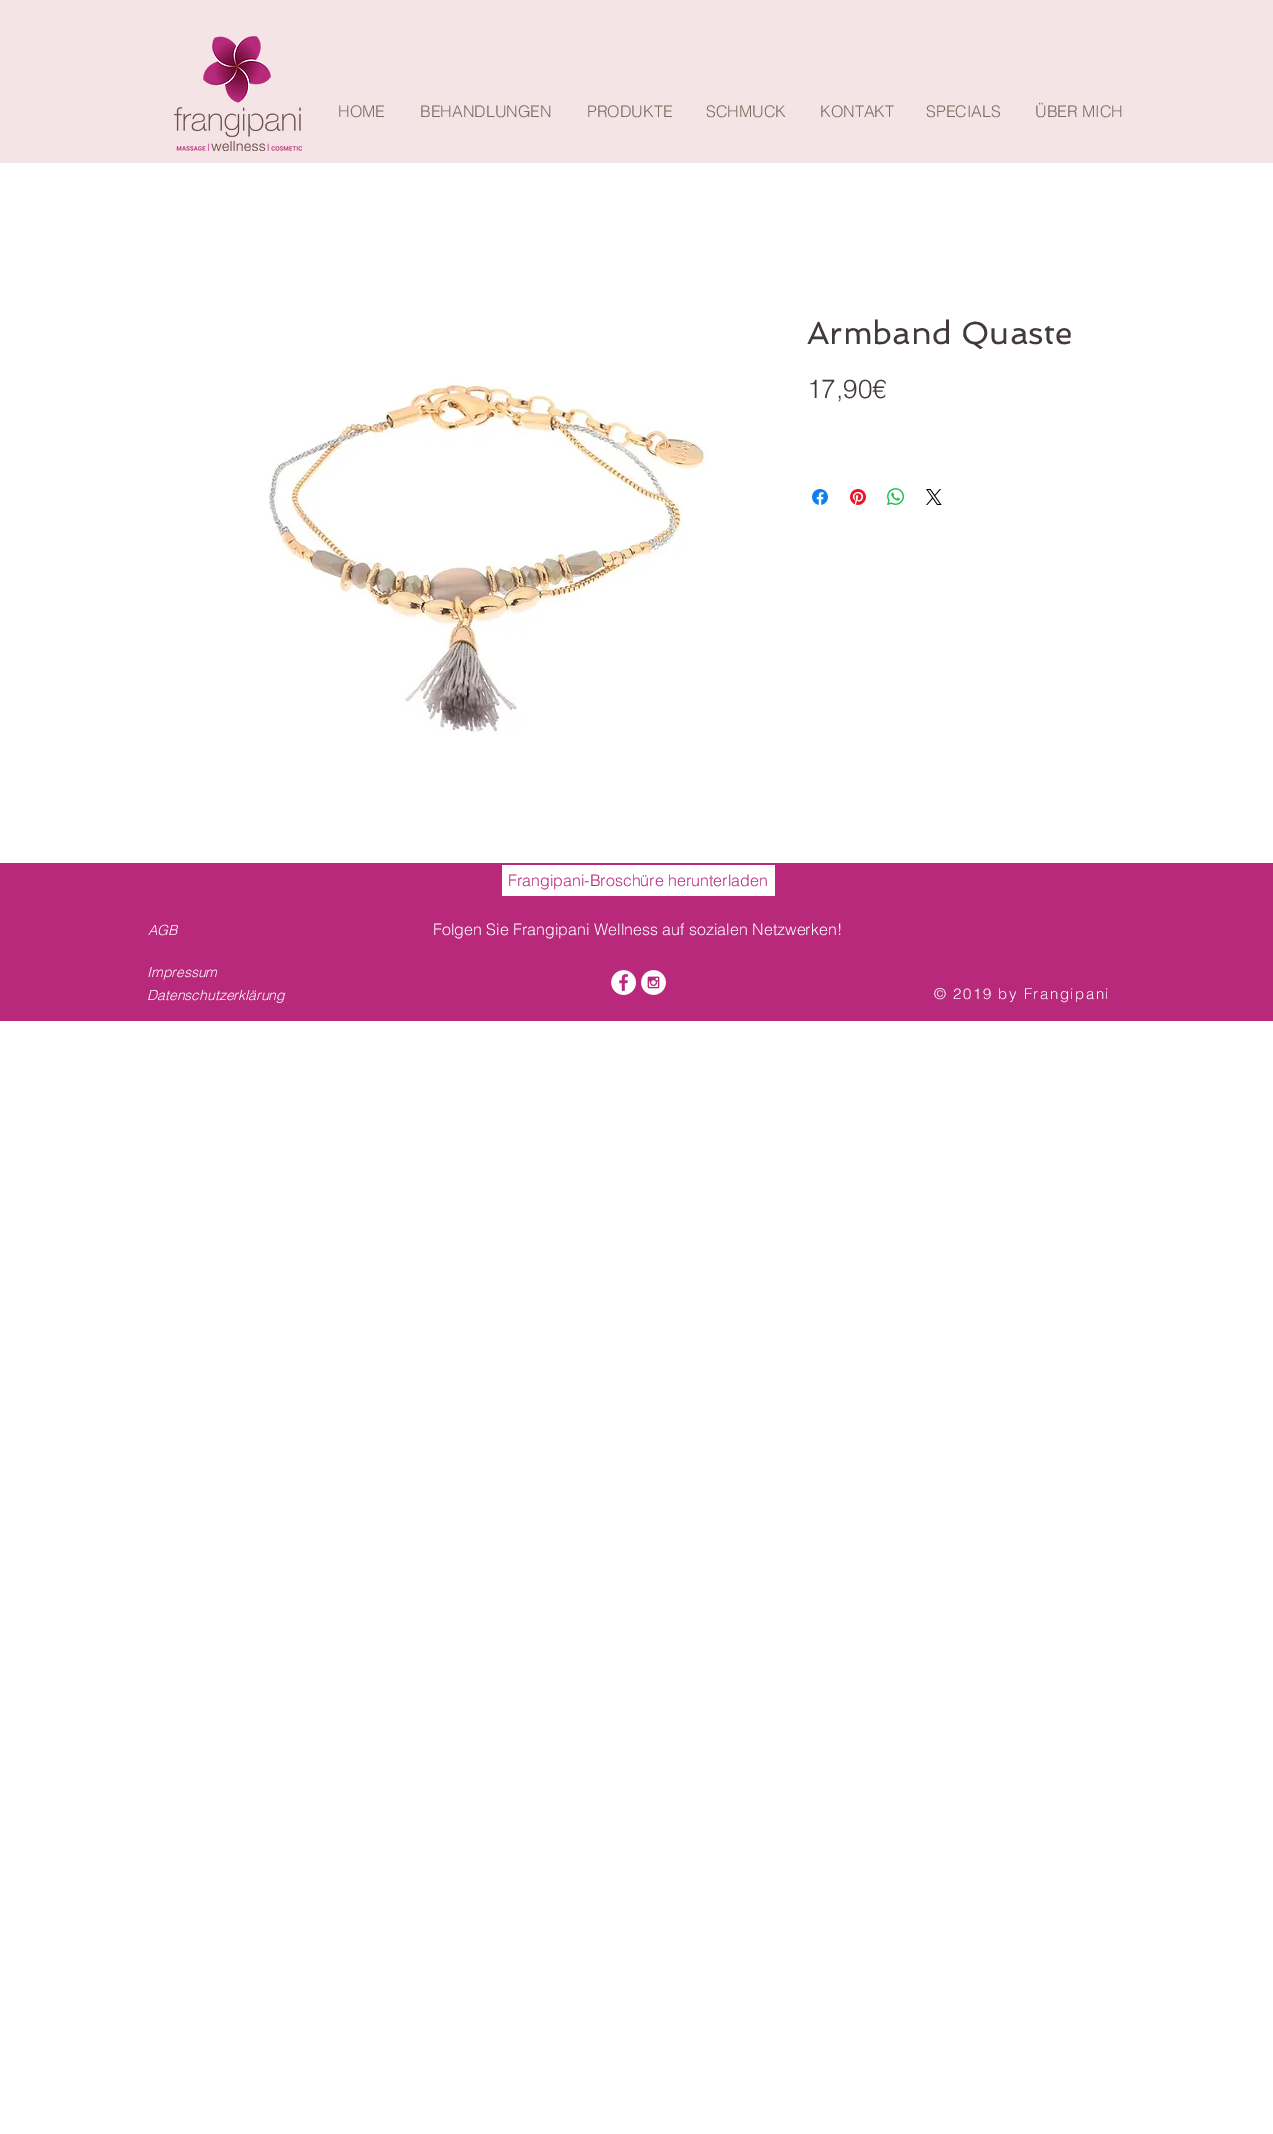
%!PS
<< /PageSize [1273 2134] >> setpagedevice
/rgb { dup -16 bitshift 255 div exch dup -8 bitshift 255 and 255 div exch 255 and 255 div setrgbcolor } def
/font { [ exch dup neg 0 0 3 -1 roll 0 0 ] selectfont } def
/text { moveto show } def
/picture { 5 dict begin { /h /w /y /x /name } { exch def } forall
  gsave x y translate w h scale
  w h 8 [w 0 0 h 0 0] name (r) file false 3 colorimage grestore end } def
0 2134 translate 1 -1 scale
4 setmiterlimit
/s1 { /helvetica-Light 16 font 16#7E6B63 rgb } def
/s2 { /Spinnaker-Regular 32 font 16#413A38 rgb } def
/s3 { /helvetica-Light 26 font 16#413A38 rgb } def
/s4 { /helvetica-Light 16 font 16#B8297C rgb } def
/s5 { /helvetica-LightItalic 14 font 16#FFFFFF rgb } def
/s6 { /helvetica-Light 16 font 16#FFFFFF rgb } def
16#FFFFFF rgb
0 0 1273 2134 rectfill
16#F5E4E5 rgb
0 0 1273 163 rectfill
(pic1.raw) 174 36 128 115 picture
s1
(HOME) 338 117 text
(BEHANDLUNGEN) 420 117 text
(PRODUKTE) 587 117 text
(SCHMUCK) 706 117 text
(KONTAKT) 820 117 text
(SPECIALS) 926 117 text
(ÜBER MICH) 1035 117 text
s2
(Armband Quaste) 807 344 text
s3
(17,90€) 807 398 text
(pic2.raw) 812 489 16 16 picture
(pic3.raw) 850 489 16 16 picture
(pic4.raw) 887 488 17 17 picture
(pic5.raw) 926 489 16 16 picture
(pic6.raw) 268 382 439 352 picture
16#B8297C rgb
0 863 1273 158 rectfill
16#FFFFFF rgb
502 865 273 31 rectfill
s4
(Frangipani-Broschüre herunterladen) 508 886 text
s5
(AGB) 148 935 text
s6
(Folgen Sie Frangipani Wellness auf sozialen Netzwerken!) 433 935 text
s5
(Impressum) 147 977 text
(pic7.raw) 611 970 25 25 picture
(pic8.raw) 641 970 25 25 picture
/helvetica-Light 15 font
934 999 moveto 1.5 0 (© 2019 by Frangipani) ashow
s5
(Datenschutzerklärung) 147 1000 text
showpage
